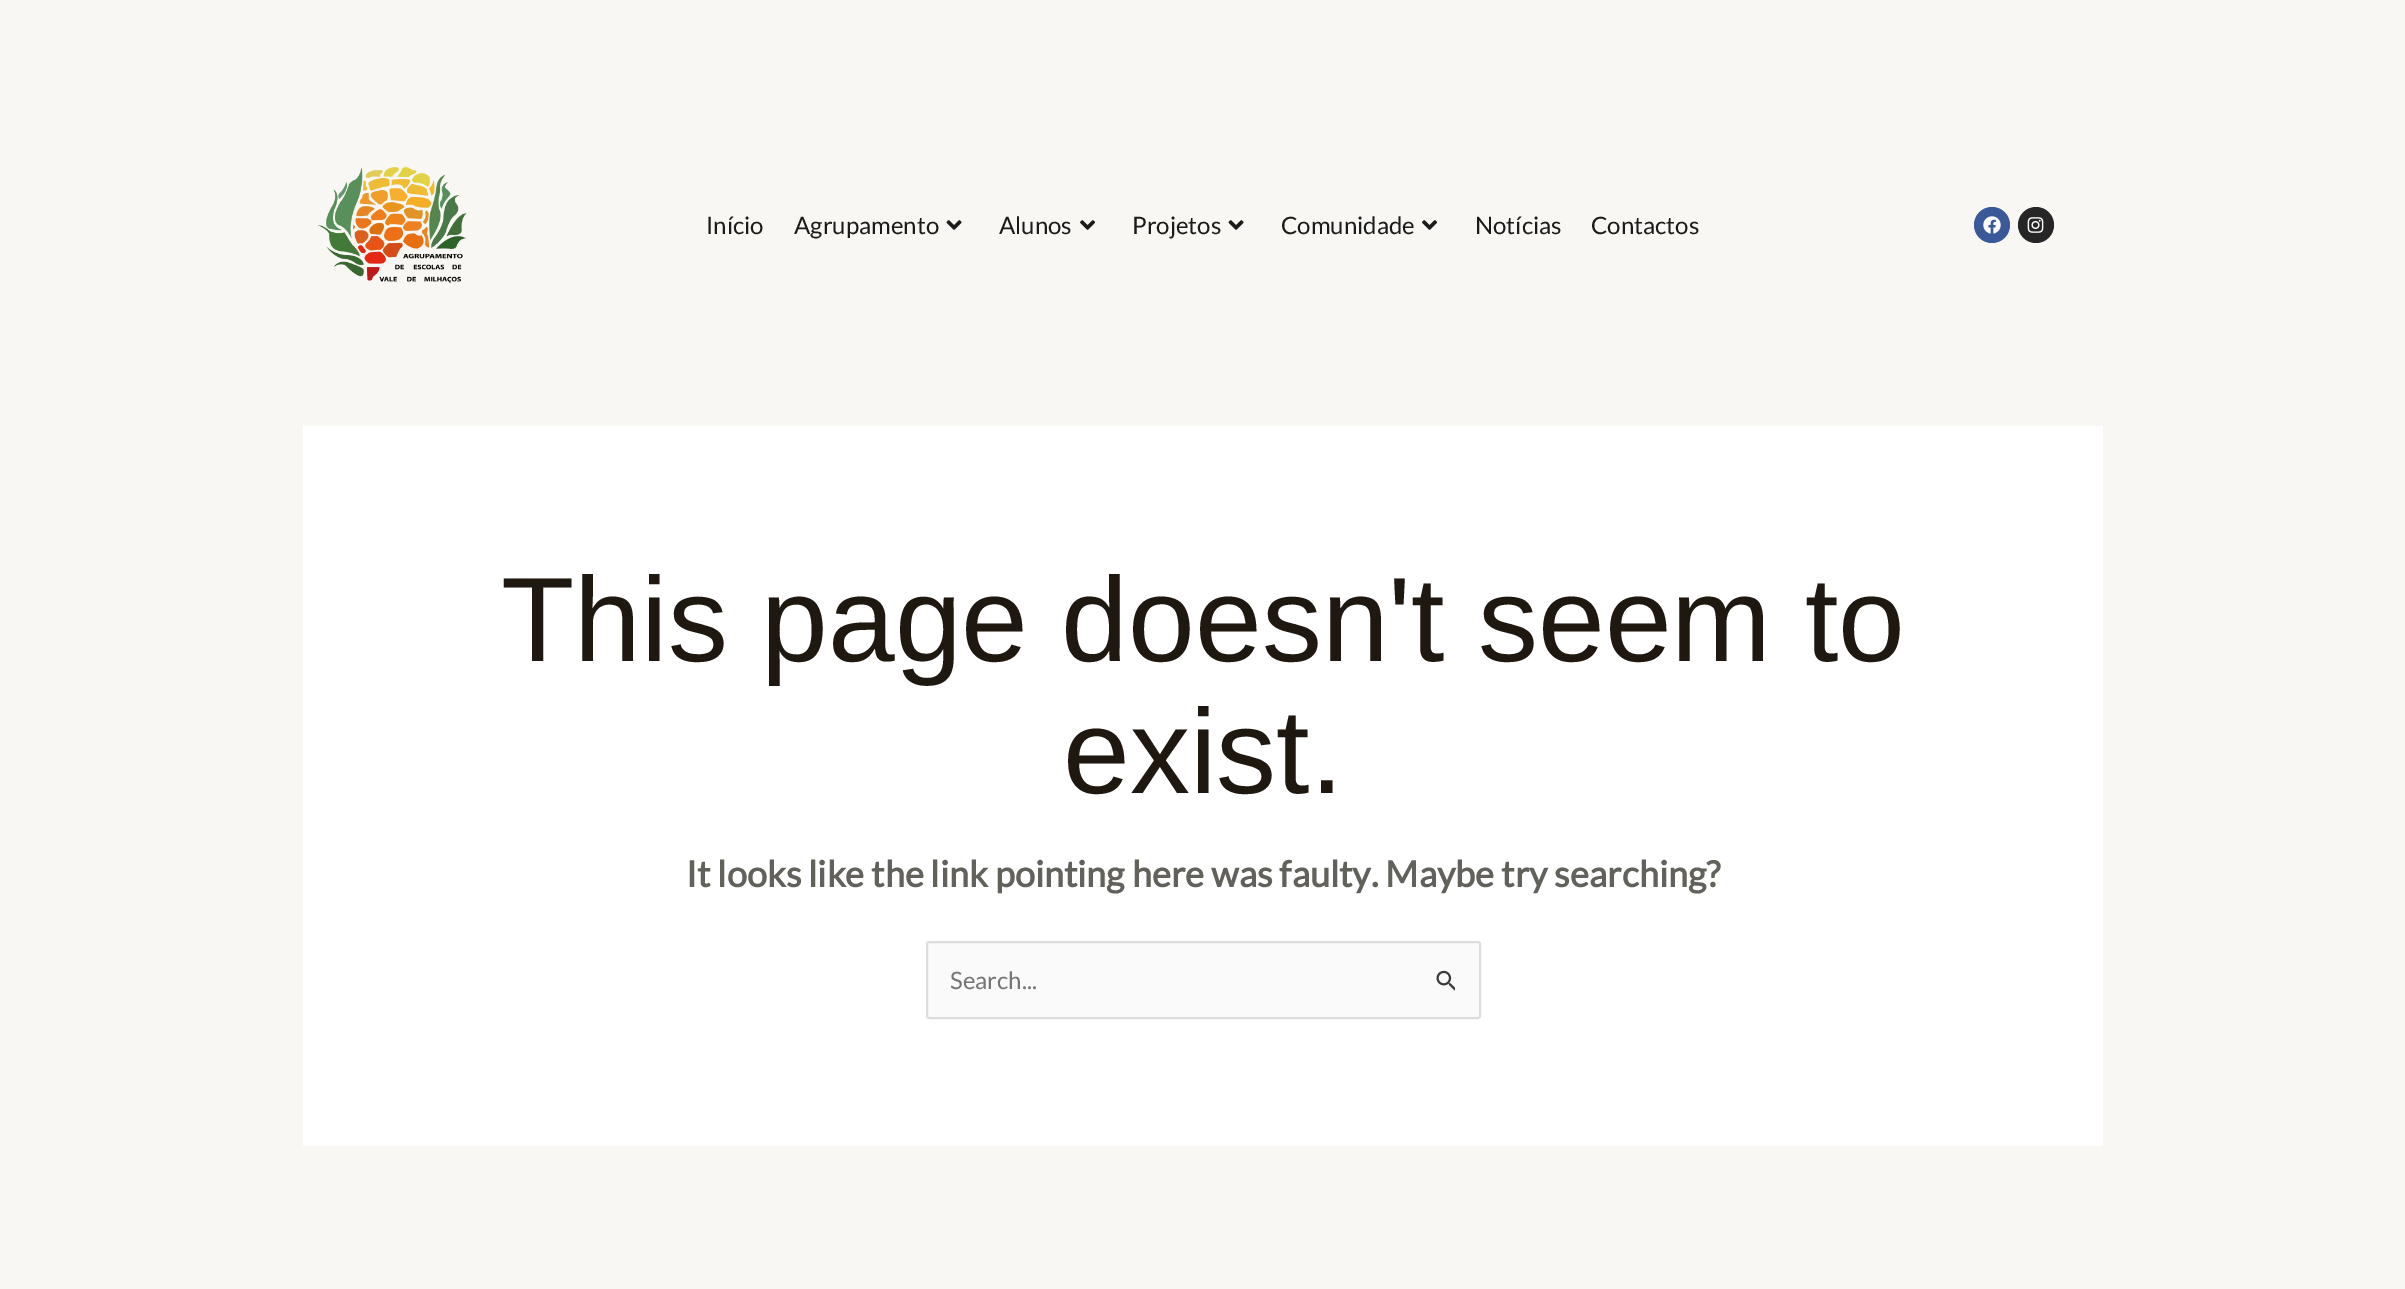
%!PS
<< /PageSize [2405 1289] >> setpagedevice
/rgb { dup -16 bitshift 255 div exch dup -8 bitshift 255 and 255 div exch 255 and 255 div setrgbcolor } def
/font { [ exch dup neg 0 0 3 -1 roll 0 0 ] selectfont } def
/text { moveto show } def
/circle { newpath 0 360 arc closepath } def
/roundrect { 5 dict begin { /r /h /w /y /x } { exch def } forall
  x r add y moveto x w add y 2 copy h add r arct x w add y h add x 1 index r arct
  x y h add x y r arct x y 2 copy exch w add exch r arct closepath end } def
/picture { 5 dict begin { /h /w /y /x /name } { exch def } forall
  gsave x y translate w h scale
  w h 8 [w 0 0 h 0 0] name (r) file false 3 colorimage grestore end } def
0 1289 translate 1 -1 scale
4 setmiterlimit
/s1 { /Lato-Regular 24 font 16#1B1B1B rgb } def
/s2 { /LiberationSans-Regular 120 font 16#1E1810 rgb } def
/s3 { /Lato-Bold 36 font 16#62615C rgb } def
/s4 { /Lato-Regular 24 font 16#757575 rgb } def
16#F8F7F3 rgb
0 0 2405 1289 rectfill
(pic1.raw) 318 167 149 116 picture
s1
(Início) 706 234 text
(Agrupamento) 794 234 text
(pic2.raw) 946 220 16 10 picture
(Alunos) 999 234 text
(pic3.raw) 1080 220 15 10 picture
(Projetos) 1132 234 text
(pic2.raw) 1228 220 16 10 picture
(Comunidade) 1281 234 text
(pic3.raw) 1422 220 15 10 picture
(Notícias) 1475 234 text
(Contactos) 1591 234 text
16#3B5998 rgb
1992 225 18 circle fill
(pic4.raw) 1983 216 18 18 picture
16#262626 rgb
2036 225 18 circle fill
(pic5.raw) 2027 217 17 16 picture
16#FFFFFF rgb
303 426 1800 720 rectfill
s2
(This page doesn't seem to) 501 661 text
(exist.) 1063 793 text
s3
(It looks like the link pointing here was faulty. Maybe try searching?) 686 887 text
16#FAFAFA rgb
927 942 553 76 2 roundrect gsave fill grestore
16#DDDDDD rgb
2 setlinewidth
stroke
s4
(Search...) 950 989 text
(pic6.raw) 1436 970 19 21 picture
showpage
